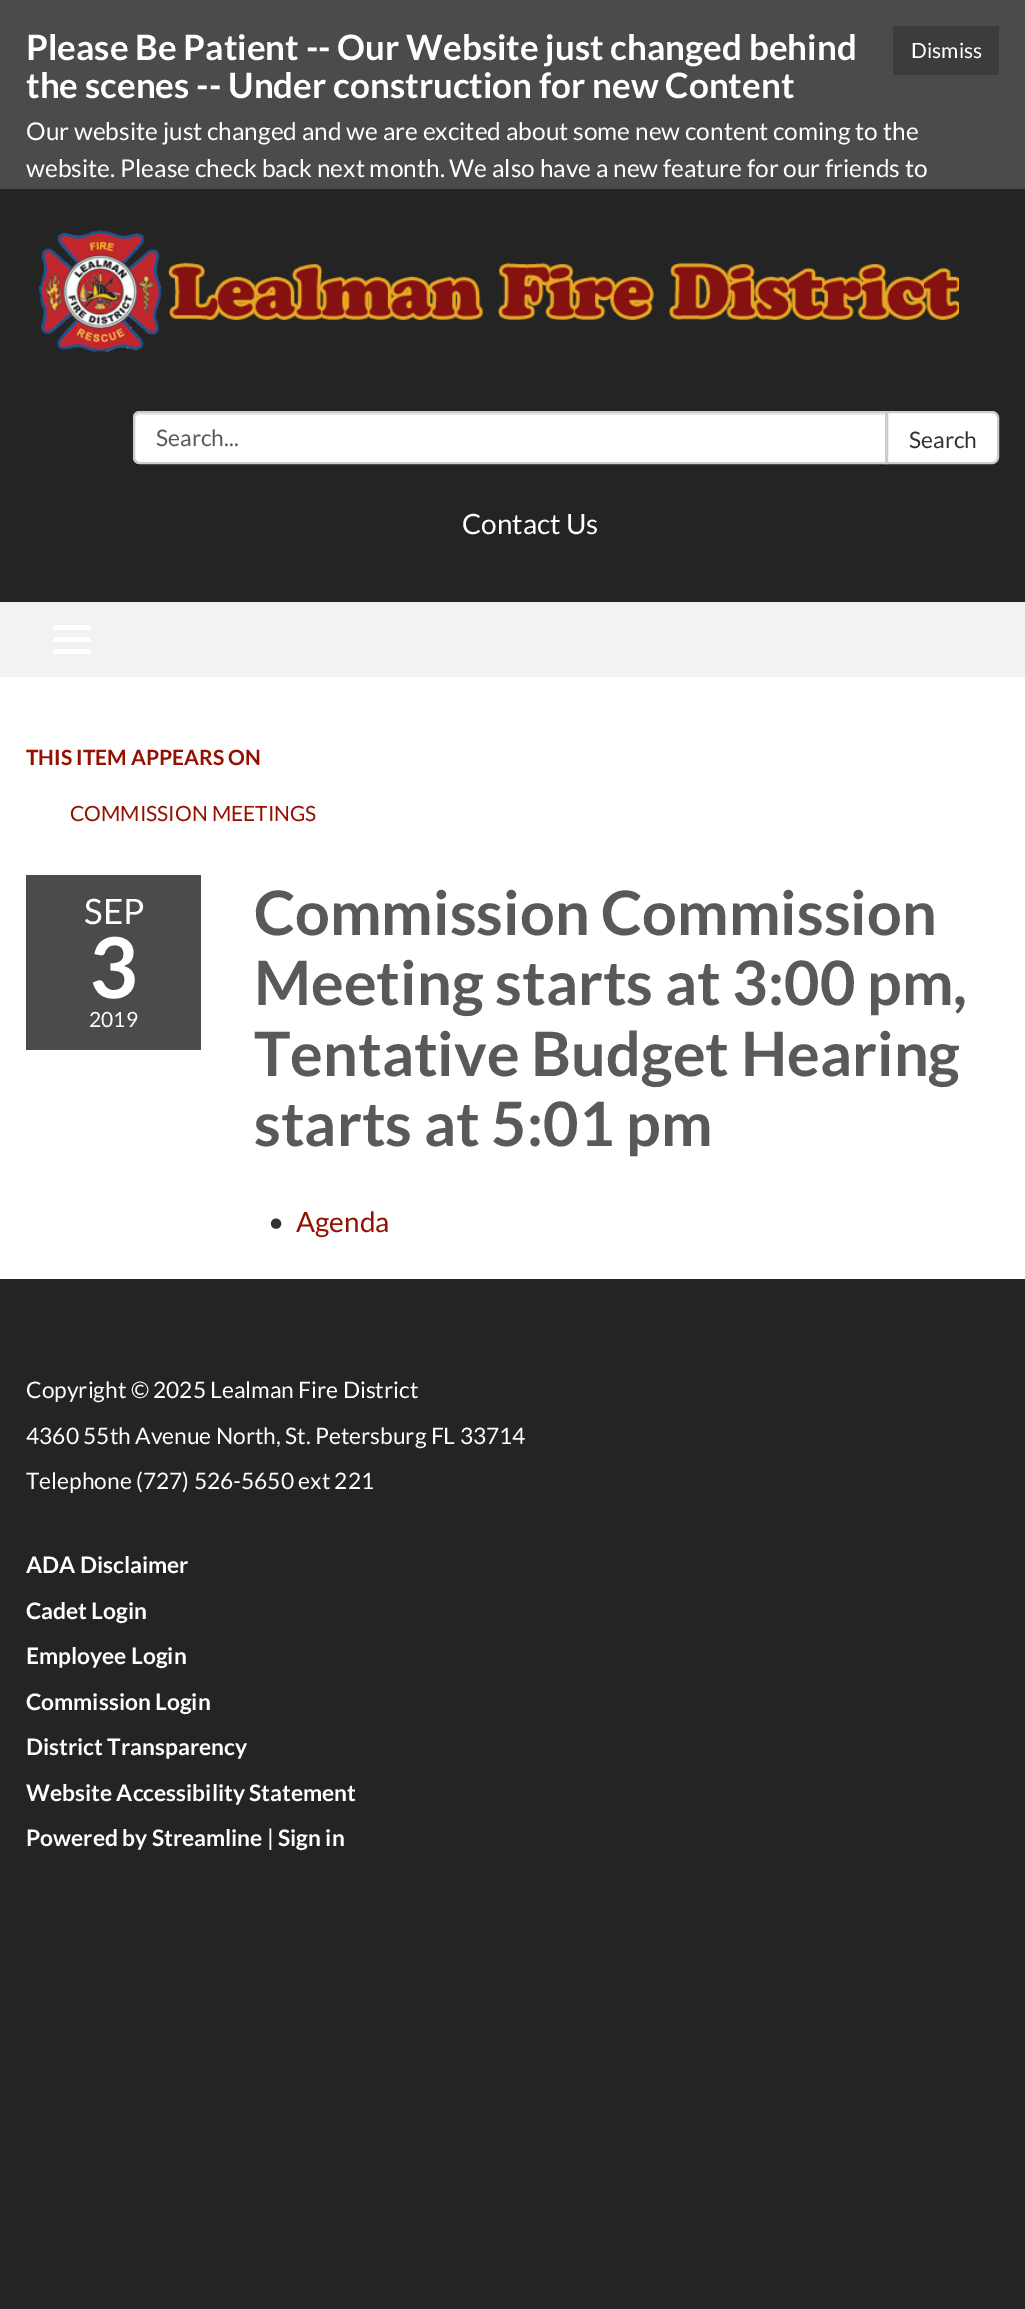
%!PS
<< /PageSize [1025 2309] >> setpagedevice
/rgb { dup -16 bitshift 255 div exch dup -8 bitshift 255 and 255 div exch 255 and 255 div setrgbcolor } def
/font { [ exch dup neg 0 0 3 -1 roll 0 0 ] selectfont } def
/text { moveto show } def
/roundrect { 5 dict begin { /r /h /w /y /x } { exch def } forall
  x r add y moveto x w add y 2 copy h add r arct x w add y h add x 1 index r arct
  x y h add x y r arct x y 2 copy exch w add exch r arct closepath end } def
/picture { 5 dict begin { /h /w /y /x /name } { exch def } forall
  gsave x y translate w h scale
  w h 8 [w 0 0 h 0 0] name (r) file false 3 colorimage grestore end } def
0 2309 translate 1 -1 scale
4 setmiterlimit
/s1 { /Lato-Bold 35 font 16#FFFFFF rgb } def
/s2 { /Lato-Regular 21 font 16#FFFFFF rgb } def
/s3 { /Lato-Regular 24.5 font 16#FFFFFF rgb } def
/s4 { /Lato-Regular 22.75 font 16#58595B rgb } def
/s5 { /Lato-Regular 22.75 font 16#333333 rgb } def
/s6 { /Lato-Regular 28 font 16#FFFFFF rgb } def
/s7 { /Lato-Bold 21 font 16#941100 rgb } def
/s8 { /Lato-Regular 21 font 16#941100 rgb } def
/s9 { /Lato-Regular 35 font 16#FFFFFF rgb } def
/s10 { /Lato-Bold 84 font 16#FFFFFF rgb } def
/s11 { /Lato-Bold 61.25 font 16#58595B rgb } def
/s12 { /Lato-Regular 28 font 16#333333 rgb } def
/s13 { /Lato-Regular 28 font 16#941100 rgb } def
/s14 { /Lato-Regular 22.75 font 16#FFFFFF rgb } def
/s15 { /Lato-Bold 22.75 font 16#FFFFFF rgb } def
16#242424 rgb
0 0 1025 2309 rectfill
16#4B4B4B rgb
0 0 1025 189 rectfill
s1
(Please Be Patient -- Our Website just changed behind) 26 60 text
(the scenes -- Under construction for new Content) 26 98 text
16#3C3C3C rgb
893 26 106 49 rectfill
s2
(Dismiss) 911 58 text
s3
(Our website just changed and we are excited about some new content coming to the) 26 140 text
(website. Please check back next month. We also have a new feature for our friends to) 26 177 text
(pic1.raw) 39 230 920 123 picture
140 411 moveto 887 411 lineto 887 464 lineto 140 464 lineto 136 464 133 461 133 457 curveto 133 418 lineto 133 414 136 411 140 411 curveto closepath fill
16#ECECEC rgb
140 415 moveto 886 415 lineto 886 413 lineto 140 413 lineto 136 413 135 417 135 420 curveto 135 417 137 415 140 415 curveto closepath fill
16#CCCCCC rgb
2 setlinewidth
140 412 moveto 886 412 lineto 886 463 lineto 140 463 lineto 136.5 463 134 460.5 134 457 curveto 134 418 lineto 134 414.5 136.5 412 140 412 curveto closepath stroke
s4
(Search...) 156 446 text
16#FFFFFF rgb
887 412 moveto 992 412 lineto 995.5 412 998 414.5 998 418 curveto 998 457 lineto 998 460.5 995.5 463 992 463 curveto 887 463 lineto closepath gsave fill grestore
16#CCCCCC rgb
stroke
s5
(Search) 909 448 text
s6
(Contact Us) 462 534 text
16#F2F2F2 rgb
0 602 1025 75 rectfill
16#FFFFFF rgb
53 625 38 5 2 roundrect fill
53 637 38 5 2 roundrect fill
53 649 38 5 2 roundrect fill
0 677 1025 602 rectfill
s7
(THIS ITEM APPEARS ON) 26 765 text
s8
(COMMISSION MEETINGS) 70 821 text
16#4B4B4B rgb
26 875 175 175 rectfill
s9
(SEP) 84 924 text
s10
(3) 89 998 text
s2
(2019) 89 1027 text
s11
(Commission Commission) 254 935 text
(Meeting starts at 3:00 pm,) 254 1005 text
(Tentative Budget Hearing) 254 1076 text
(starts at 5:01 pm) 254 1146 text
s12
(•) 268 1232 text
s13
(Agenda) 296 1232 text
s14
(Copyright © 2025 Lealman Fire District) 26 1398 text
(4360 55th Avenue North, St. Petersburg FL 33714) 26 1444 text
(Telephone \(727\) 526-5650 ext 221) 26 1489 text
s15
(ADA Disclaimer) 26 1573 text
(Cadet Login) 26 1619 text
(Employee Login) 26 1664 text
(Commission Login) 26 1710 text
(District Transparency) 26 1755 text
(Website Accessibility Statement) 26 1801 text
(Powered by Streamline) 26 1846 text
s14
(|) 267 1846 text
s15
(Sign in) 278 1846 text
showpage
